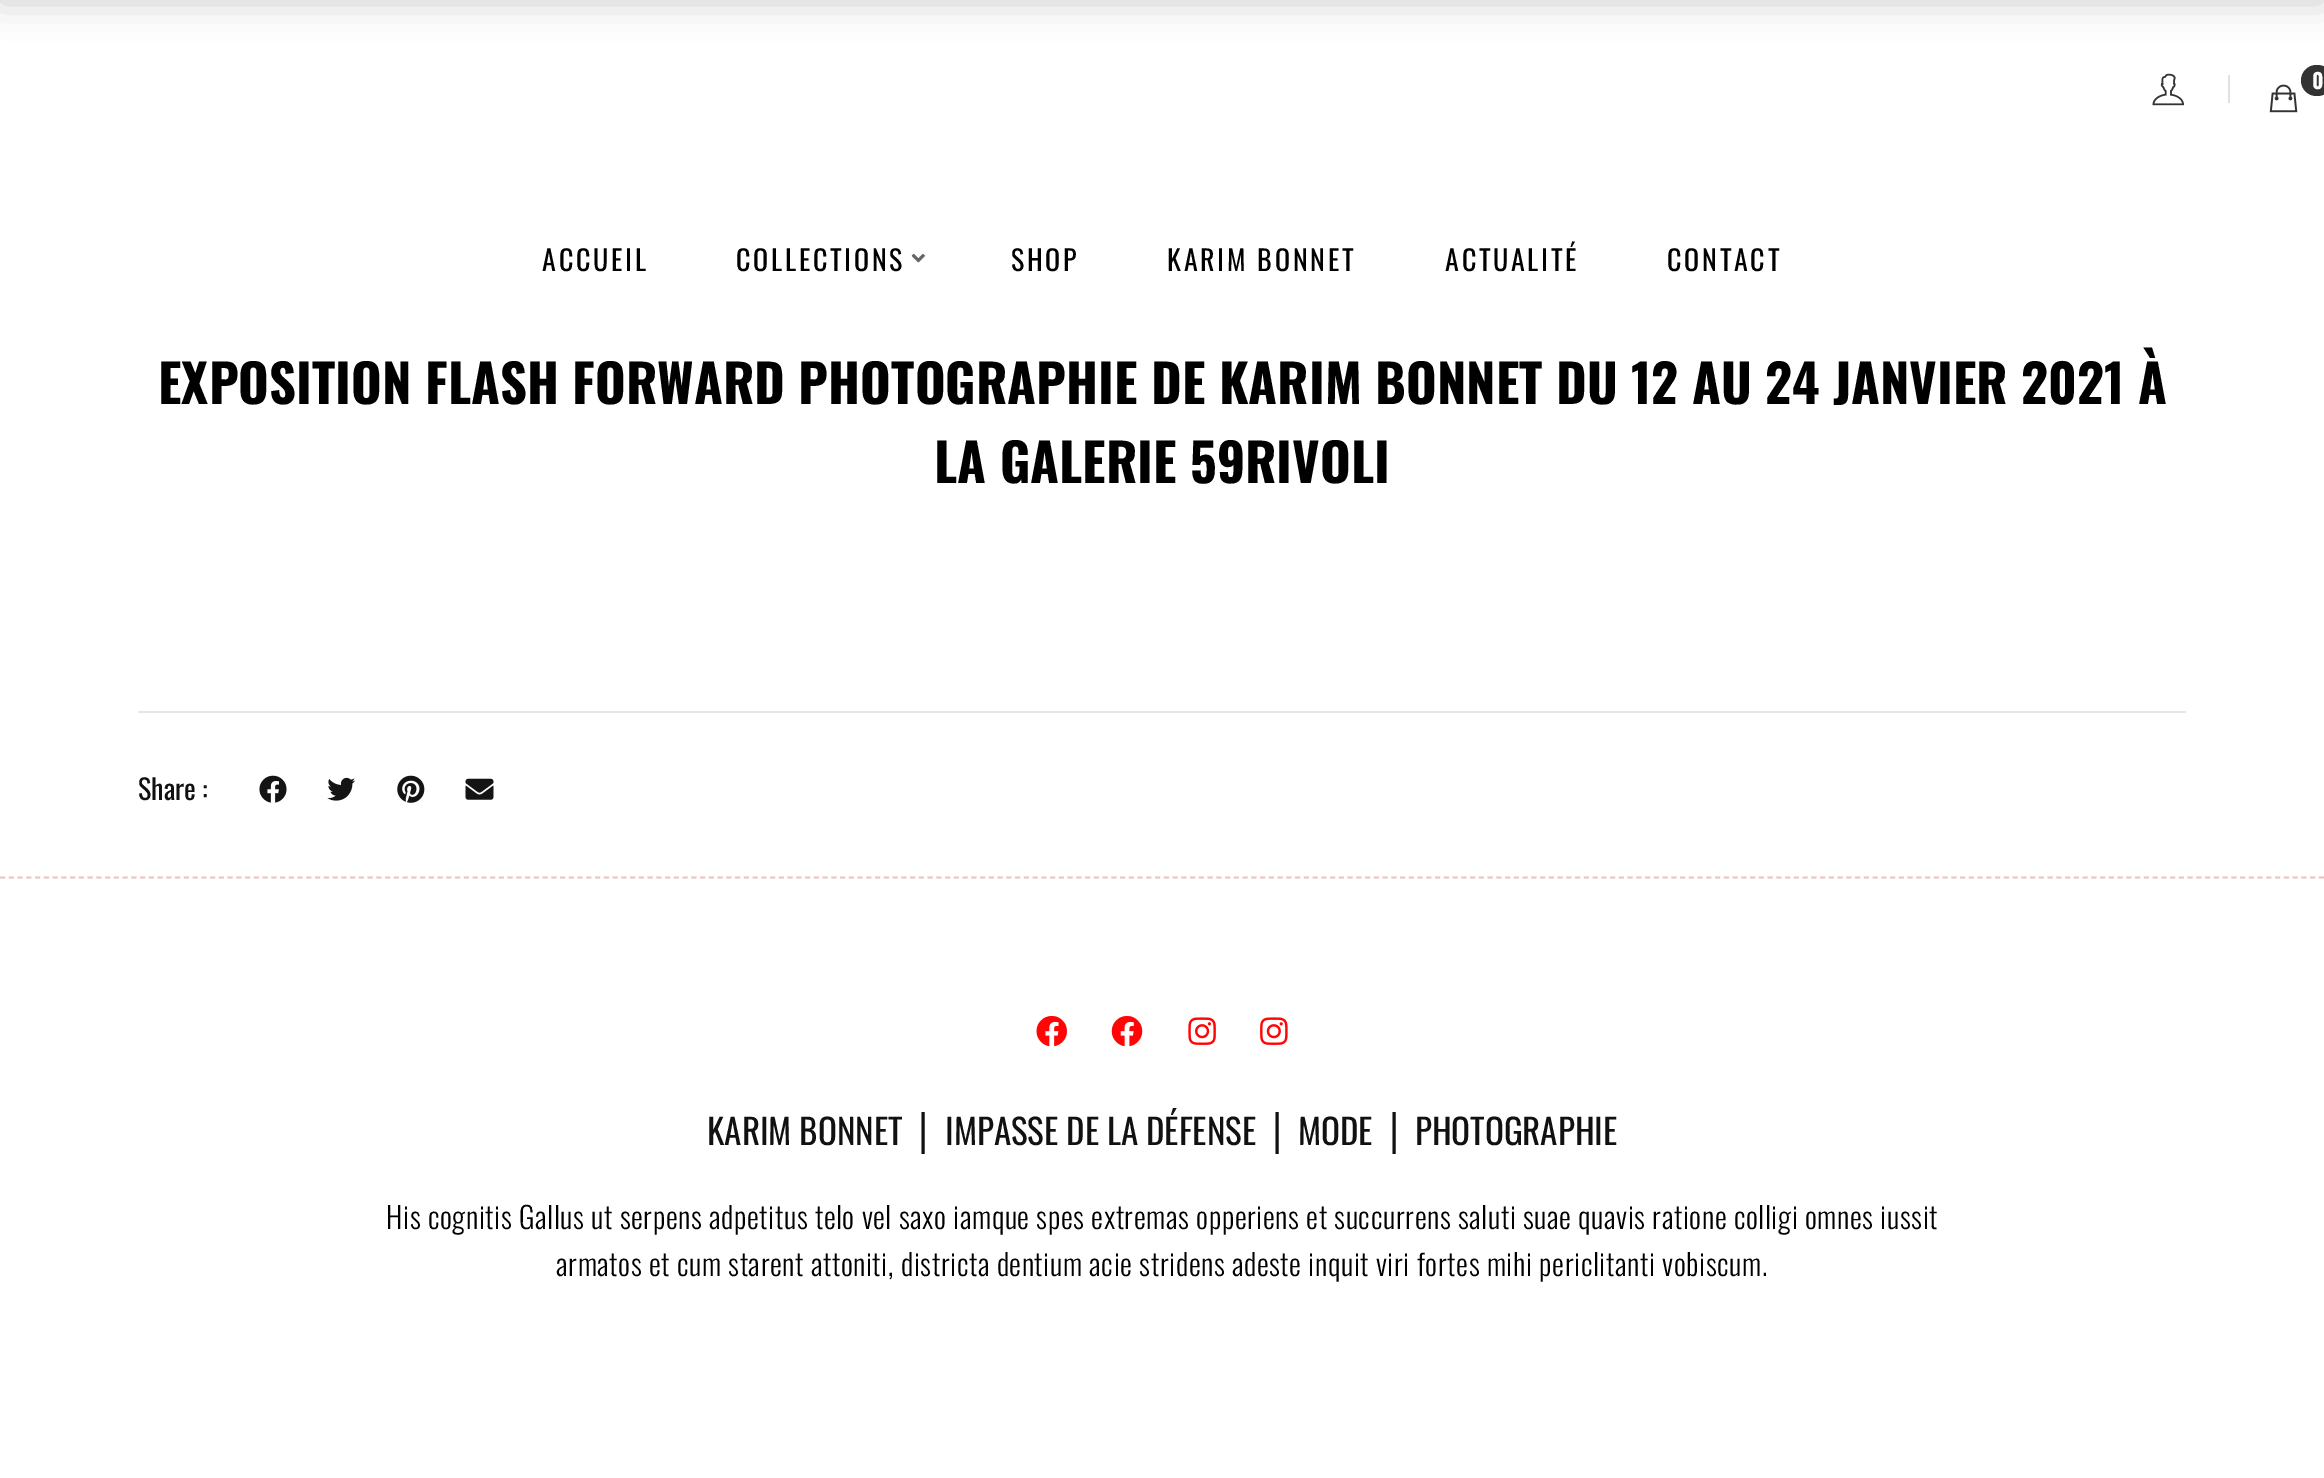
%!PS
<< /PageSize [2324 1478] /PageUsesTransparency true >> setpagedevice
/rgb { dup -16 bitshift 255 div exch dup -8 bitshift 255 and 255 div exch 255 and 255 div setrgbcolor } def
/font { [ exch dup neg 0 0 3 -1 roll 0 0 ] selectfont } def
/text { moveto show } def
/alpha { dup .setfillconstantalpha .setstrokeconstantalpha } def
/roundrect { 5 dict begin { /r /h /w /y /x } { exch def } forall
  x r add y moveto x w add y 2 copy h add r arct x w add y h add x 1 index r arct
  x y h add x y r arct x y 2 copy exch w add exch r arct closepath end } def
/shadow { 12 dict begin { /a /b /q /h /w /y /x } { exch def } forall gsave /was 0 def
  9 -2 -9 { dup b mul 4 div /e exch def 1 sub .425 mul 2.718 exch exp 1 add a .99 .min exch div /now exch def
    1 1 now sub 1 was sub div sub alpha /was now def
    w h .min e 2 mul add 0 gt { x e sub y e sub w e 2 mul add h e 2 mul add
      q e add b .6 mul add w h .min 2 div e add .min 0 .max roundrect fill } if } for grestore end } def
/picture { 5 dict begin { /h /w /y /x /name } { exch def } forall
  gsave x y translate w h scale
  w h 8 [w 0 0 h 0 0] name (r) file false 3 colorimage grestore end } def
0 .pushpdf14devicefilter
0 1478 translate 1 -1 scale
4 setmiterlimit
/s1 { /Oswald-Bold 21 font 16#FFFFFF rgb } def
/s2 { /Oswald-Bold 52.5 font 16#000000 rgb } def
/s3 { /Oswald-Regular 28 font 16#111111 rgb } def
/s4 { /Oswald-Regular 35 font 16#111111 rgb } def
/s5 { /DejaVuSans-Regular 35 font 16#111111 rgb } def
16#FFFFFF rgb
0 0 2324 1478 rectfill
16#000000 rgb
0 -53 2324 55 0 17.5 0.2 shadow
(pic1.raw) 2152 73 32 33 picture
16#E0E0E0 rgb
2228 75 2 28 rectfill
16#333333 rgb
2301 65 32 31 15.5 roundrect fill
s1
(0) 2312 89 text
(pic2.raw) 2269 84 29 29 picture
/Oswald-Regular 28 font
16#000000 rgb
542 271 moveto 2.75 0 (ACCUEIL) ashow
736 271 moveto 2.75 0 (COLLECTIONS) ashow
(pic3.raw) 911 253 14 10 picture
1011 271 moveto 2.75 0 (SHOP) ashow
1167 271 moveto 2.75 0 (KARIM BONNET) ashow
1445 271 moveto 2.75 0 (ACTUALITÉ) ashow
1667 271 moveto 2.75 0 (CONTACT) ashow
s2
(EXPOSITION FLASH FORWARD PHOTOGRAPHIE DE KARIM BONNET DU 12 AU 24 JANVIER 2021 À) 158 404 text
(LA GALERIE 59RIVOLI) 934 483 text
16#E6E6E6 rgb
138 711 2048 2 rectfill
s3
(Share :) 138 800 text
(pic4.raw) 259 775 28 28 picture
(pic5.raw) 327 777 29 24 picture
(pic6.raw) 397 775 28 28 picture
(pic7.raw) 465 778 29 22 picture
16#EAC1C1 rgb
1.8 setlinewidth
[5.25 3.5] 0 setdash
0 877.5 moveto 2324 877.5 lineto stroke
(pic8.raw) 1036 1015 31 32 picture
(pic9.raw) 1111 1015 32 32 picture
(pic10.raw) 1188 1017 28 28 picture
(pic11.raw) 1260 1017 28 28 picture
s4
(KARIM BONNET) 707 1145 text
s5
(⎪) 910 1145 text
s4
(IMPASSE DE LA DÉFENSE) 945 1145 text
s5
(⎪) 1264 1145 text
s4
(MODE) 1298 1145 text
s5
(⎪) 1381 1145 text
s4
(PHOTOGRAPHIE) 1415 1145 text
/Oswald-Light 29.75 font
16#000000 rgb
386 1229 moveto 0.6 0 (His cognitis Gallus ut serpens adpetitus telo vel saxo iamque spes extremas opperiens et succurrens saluti suae quavis ratione colligi omnes iussit) ashow
556 1276 moveto 0.6 0 (armatos et cum starent attoniti, districta dentium acie stridens adeste inquit viri fortes mihi periclitanti vobiscum.) ashow
.poppdf14devicefilter showpage
